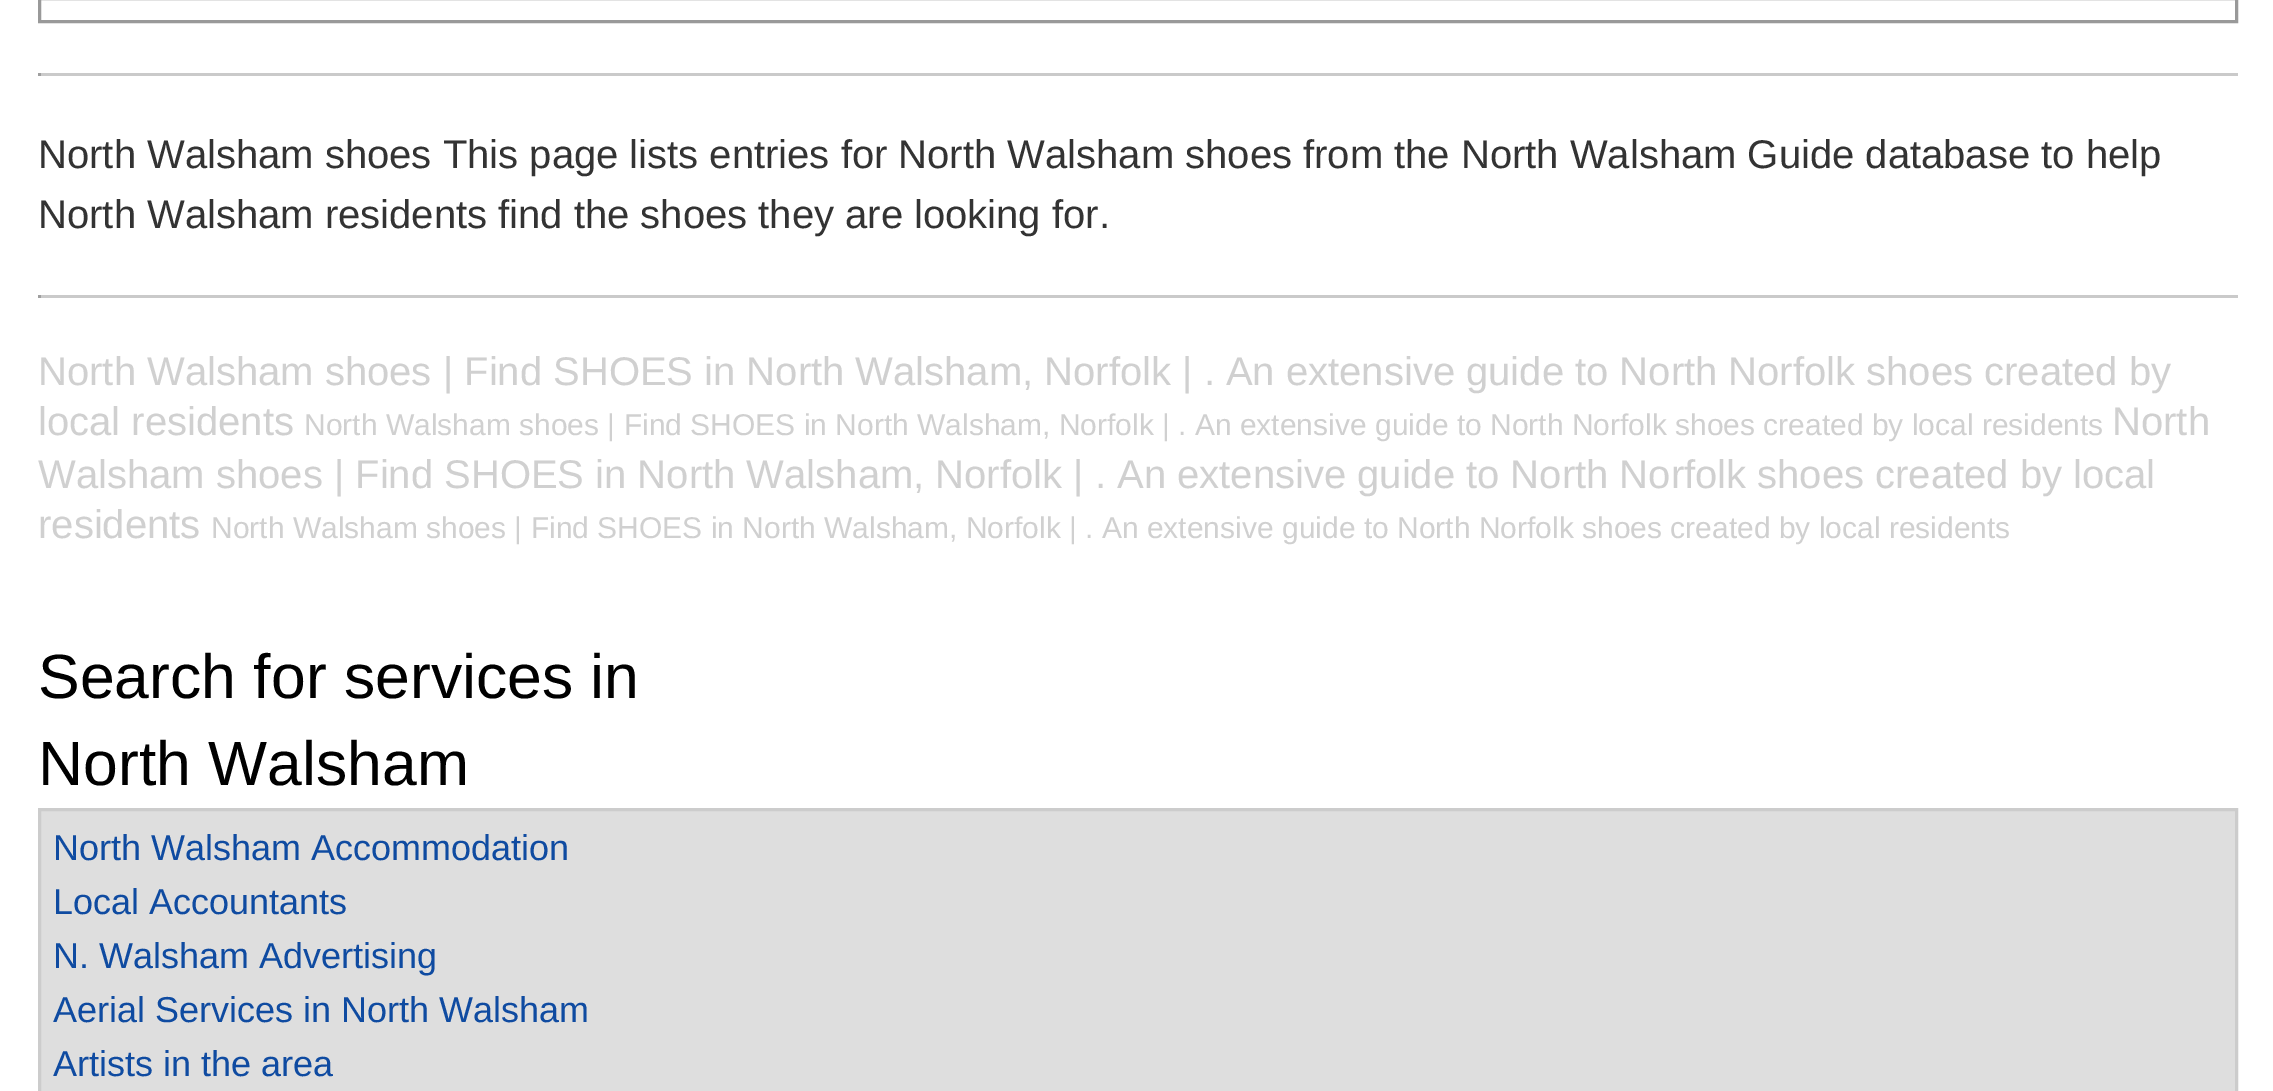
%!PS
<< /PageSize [2273 1091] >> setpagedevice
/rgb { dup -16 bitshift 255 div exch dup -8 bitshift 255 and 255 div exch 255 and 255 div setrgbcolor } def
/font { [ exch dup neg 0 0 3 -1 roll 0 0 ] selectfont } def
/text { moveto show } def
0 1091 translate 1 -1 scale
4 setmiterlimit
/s1 { /LiberationSans-Regular 40 font 16#333333 rgb } def
/s2 { /LiberationSans-Regular 40 font 16#D0D0D0 rgb } def
/s3 { /LiberationSans-Regular 30 font 16#D0D0D0 rgb } def
/s4 { /LiberationSans-Regular 62.5 font 16#000000 rgb } def
/s5 { /LiberationSans-Regular 36 font 16#0F4BA1 rgb } def
16#FFFFFF rgb
0 0 2273 1091 rectfill
16#999999 rgb
3 setlinewidth
39.5 -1.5 2197 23 rectstroke
16#CACACA rgb
38 73 2200 3 rectfill
16#9F9F9F rgb
38 73 3 3 rectfill
s1
(North Walsham shoes This page lists entries for North Walsham shoes from the North Walsham Guide database to help) 38 168 text
(North Walsham residents find the shoes they are looking for.) 38 228 text
16#CACACA rgb
38 295 2200 3 rectfill
16#9F9F9F rgb
38 295 3 3 rectfill
s2
(North Walsham shoes | Find SHOES in North Walsham, Norfolk | . An extensive guide to North Norfolk shoes created by) 38 385 text
(local residents) 38 435 text
s3
(North Walsham shoes | Find SHOES in North Walsham, Norfolk | . An extensive guide to North Norfolk shoes created by local residents) 304 435 text
s2
(North) 2112 435 text
(Walsham shoes | Find SHOES in North Walsham, Norfolk | . An extensive guide to North Norfolk shoes created by local) 38 488 text
(residents) 38 538 text
s3
(North Walsham shoes | Find SHOES in North Walsham, Norfolk | . An extensive guide to North Norfolk shoes created by local residents) 211 538 text
s4
(Search for services in) 38 698 text
(North Walsham) 38 785 text
16#DEDEDE rgb
39.5 809.5 moveto 2236.5 809.5 lineto 2236.5 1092.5 lineto 39.5 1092.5 lineto closepath gsave fill grestore
16#CCCCCC rgb
stroke
s5
(North Walsham Accommodation) 53 860 text
(Local Accountants) 53 914 text
(N. Walsham Advertising) 53 968 text
(Aerial Services in North Walsham) 53 1022 text
(Artists in the area) 53 1076 text
showpage
